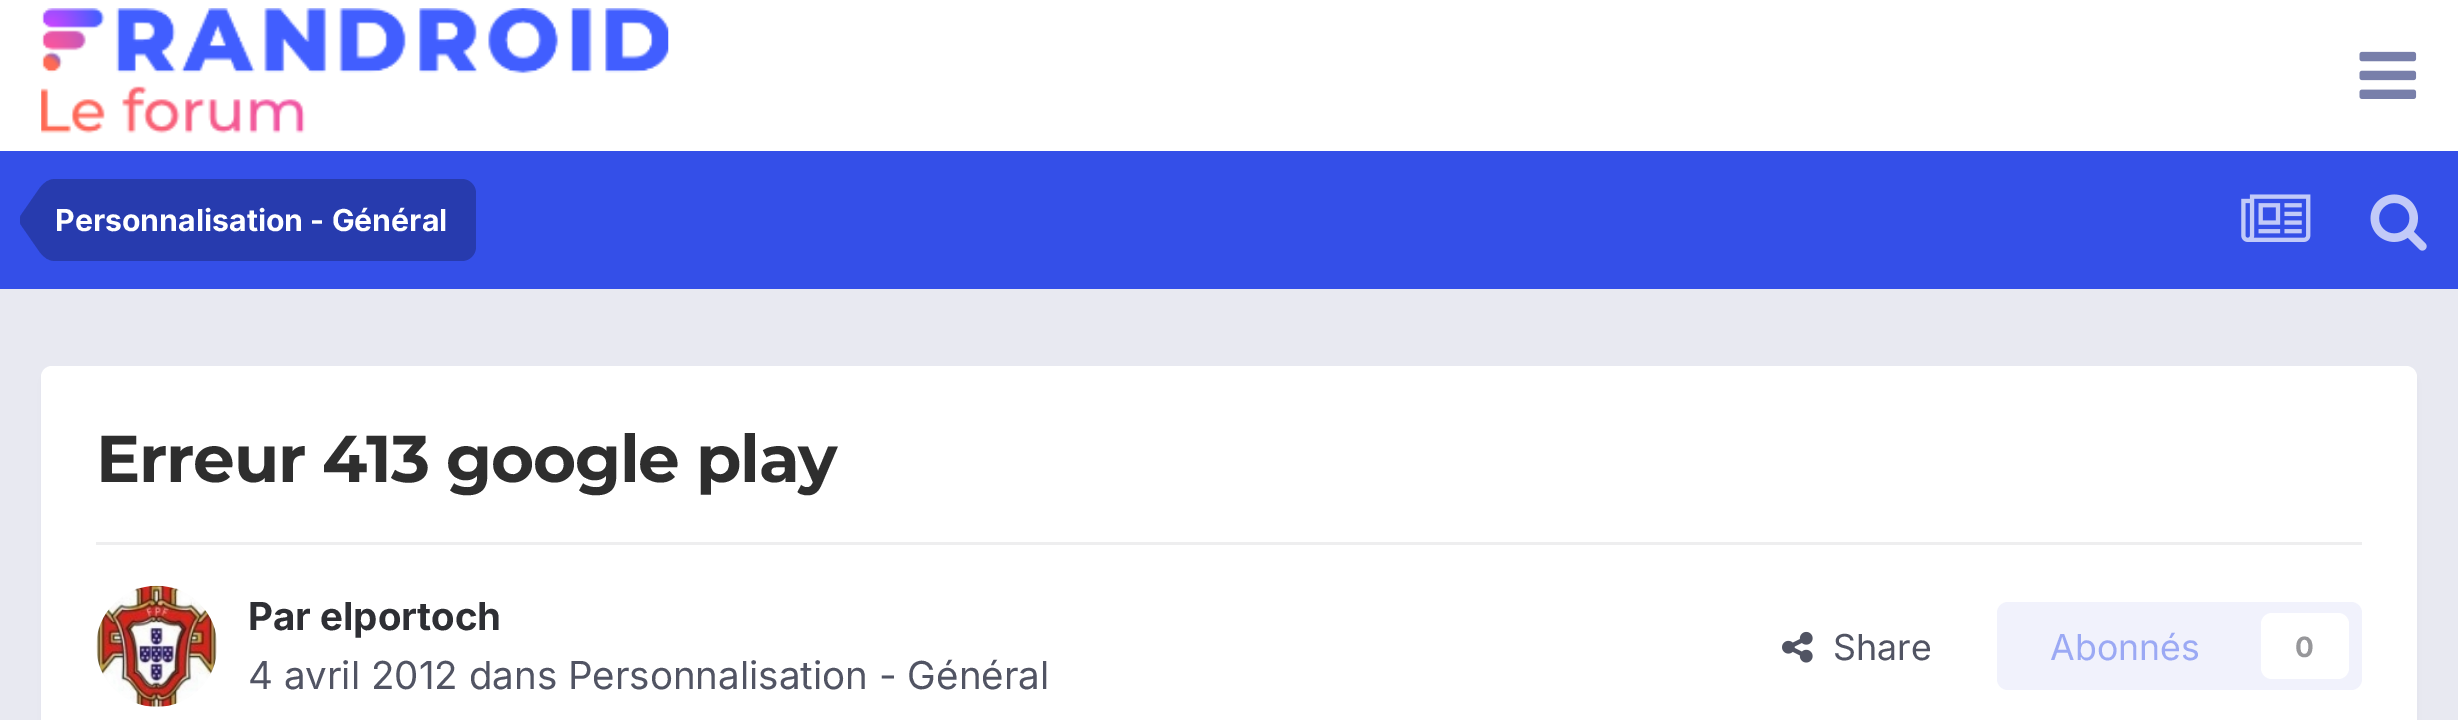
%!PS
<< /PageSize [2458 720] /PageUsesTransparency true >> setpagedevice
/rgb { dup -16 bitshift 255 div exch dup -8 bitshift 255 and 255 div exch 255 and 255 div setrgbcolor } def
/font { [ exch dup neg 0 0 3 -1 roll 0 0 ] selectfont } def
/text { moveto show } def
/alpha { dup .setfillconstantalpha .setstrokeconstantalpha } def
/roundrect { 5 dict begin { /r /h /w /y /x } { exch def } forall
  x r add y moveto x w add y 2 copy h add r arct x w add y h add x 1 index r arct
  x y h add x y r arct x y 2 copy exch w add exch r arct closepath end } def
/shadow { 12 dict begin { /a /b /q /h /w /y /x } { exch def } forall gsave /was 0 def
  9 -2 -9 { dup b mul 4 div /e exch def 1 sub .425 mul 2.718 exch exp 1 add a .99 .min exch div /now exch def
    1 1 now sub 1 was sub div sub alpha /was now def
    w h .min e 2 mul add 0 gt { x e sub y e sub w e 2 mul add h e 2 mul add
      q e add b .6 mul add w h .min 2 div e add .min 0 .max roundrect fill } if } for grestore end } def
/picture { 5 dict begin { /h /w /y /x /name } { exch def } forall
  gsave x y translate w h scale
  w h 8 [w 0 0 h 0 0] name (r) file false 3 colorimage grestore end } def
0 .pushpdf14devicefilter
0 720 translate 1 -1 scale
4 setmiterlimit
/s1 { /Inter-Bold 30.25 font 16#FFFFFF rgb } def
/s2 { /Inter-Bold 38.5 font 16#2E2F34 rgb } def
/s3 { /Inter-Regular 38.5 font 16#515463 rgb } def
/s4 { /Inter-Regular 35.75 font 16#515463 rgb } def
/s5 { /Inter-Regular 35.75 font 16#9BA9F4 rgb } def
/s6 { /Inter-Bold 28 font 16#97979A rgb } def
16#E8E9F1 rgb
0 0 2458 720 rectfill
16#FFFFFF rgb
0 0 2458 151 rectfill
(pic1.raw) 41 8 628 126 picture
(pic2.raw) 2359 51 58 48 picture
16#344FE8 rgb
0 151 2458 138 rectfill
16#273BAE rgb
55 179 moveto 462 179 lineto 469.5 179 476 185.5 476 193 curveto 476 247 lineto 476 254.5 469.5 261 462 261 curveto 55 261 lineto closepath fill
55 220 moveto 55 261 lineto 49 261 44 258 39 251 curveto 21 225 lineto 20 224 20 222 20 220 curveto closepath fill
55 220 moveto 20 220 lineto 20 218 20 216 21 215 curveto 39 189 lineto 44 182 49 179 55 179 curveto closepath fill
s1
(Personnalisation - Général) 55 231 text
(pic3.raw) 2241 194 70 48 picture
(pic4.raw) 2370 194 57 57 picture
16#787FAA rgb
44 374 2371 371 8 5.5 0.1 shadow
16#FFFFFF rgb
41 366 2376 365 11 roundrect fill
/Montserrat-Bold 66 font
16#2E2E2E rgb
96 482 moveto -1.3 0 (Erreur 413 google play) ashow
16#EEEEEF rgb
96 542 2266 3 rectfill
(pic5.raw) 96 585 121 122 picture
s2
(Par elportoch) 248 630 text
s3
(4 avril 2012 dans Personnalisation - Général) 248 689 text
(pic6.raw) 1782 631 31 32 picture
s4
(Share) 1833 660 text
16#F1F2FC rgb
1997 602 365 88 11 roundrect fill
s5
(Abonnés) 2050 660 text
16#FFFFFF rgb
2261 613 88 66 11 roundrect fill
s6
(0) 2295 657 text
.poppdf14devicefilter showpage
